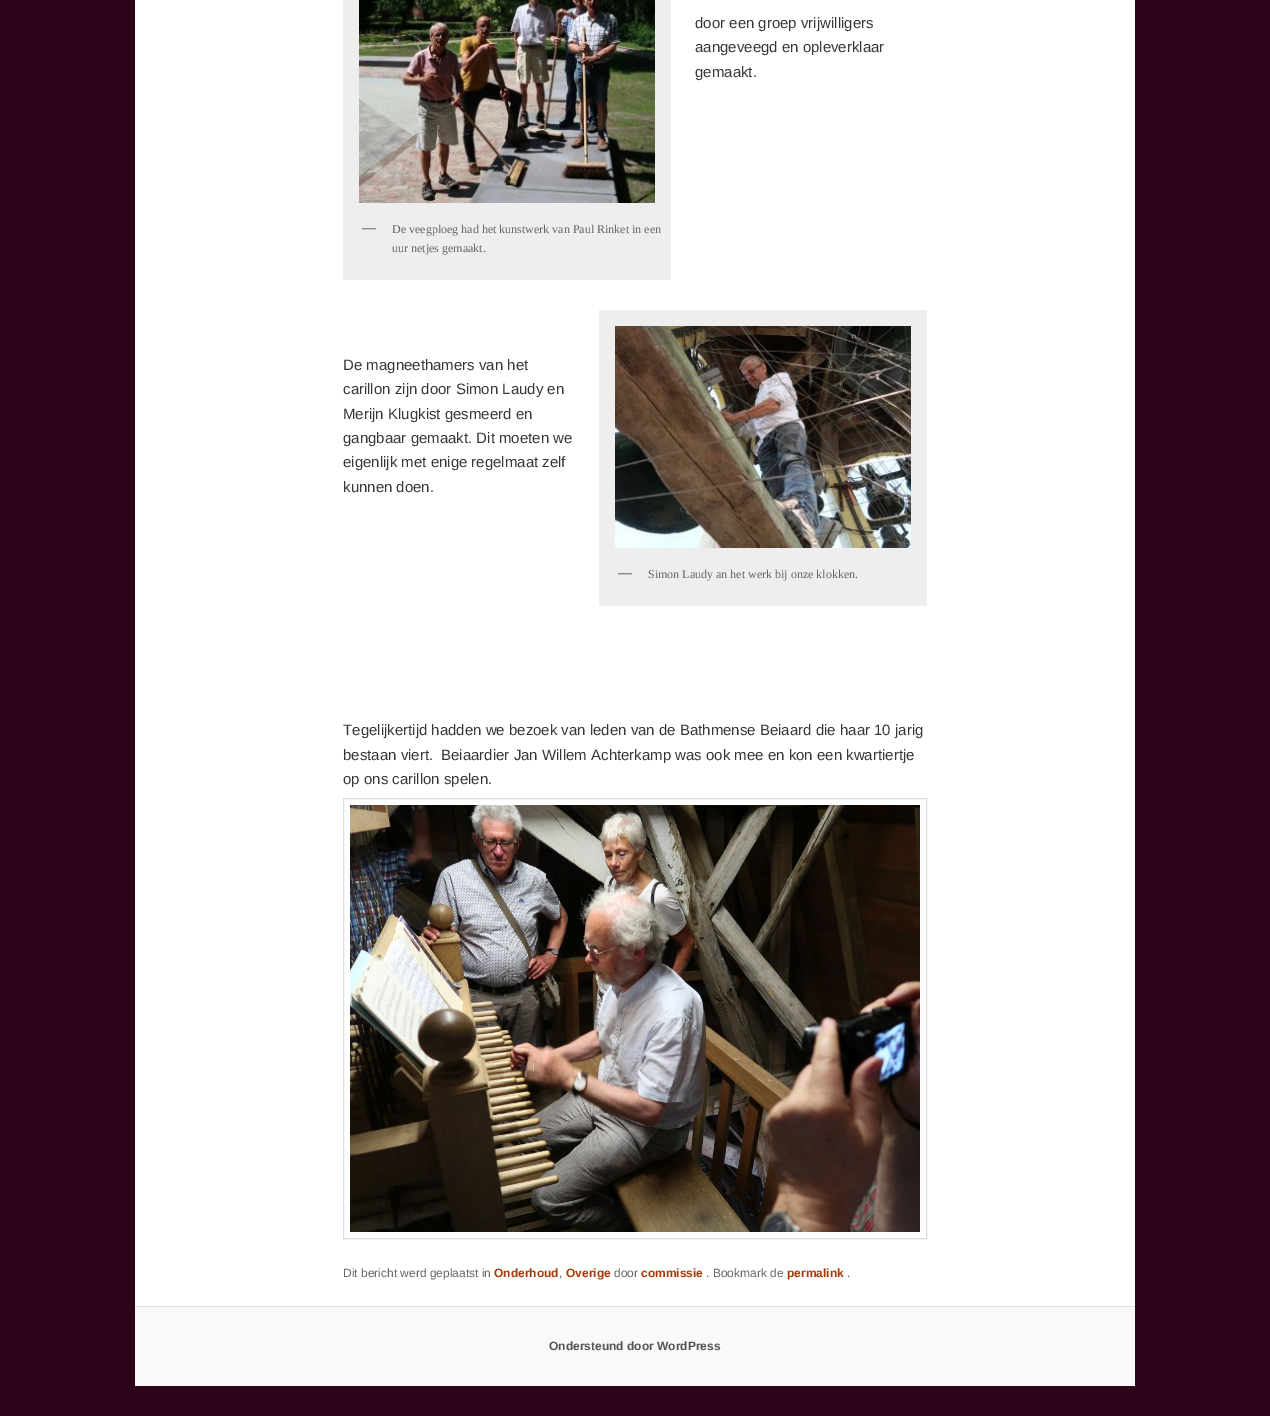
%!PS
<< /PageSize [1270 1416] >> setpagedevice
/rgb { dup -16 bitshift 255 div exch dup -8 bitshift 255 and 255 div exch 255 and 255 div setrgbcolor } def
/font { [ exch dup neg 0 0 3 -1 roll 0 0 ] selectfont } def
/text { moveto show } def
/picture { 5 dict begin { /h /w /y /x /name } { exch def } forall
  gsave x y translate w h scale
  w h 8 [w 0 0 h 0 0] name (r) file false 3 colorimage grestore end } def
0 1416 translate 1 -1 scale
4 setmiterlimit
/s1 { /LiberationSans-Regular 15 font 16#373737 rgb } def
/s2 { /LiberationSerif-Bold 14 font 16#666666 rgb } def
/s3 { /LiberationSerif-Regular 12 font 16#666666 rgb } def
/s4 { /LiberationSans-Regular 12 font 16#666666 rgb } def
/s5 { /LiberationSans-Bold 12 font 16#A53C08 rgb } def
/s6 { /LiberationSans-Bold 12 font 16#555555 rgb } def
16#2D0319 rgb
0 0 1270 1416 rectfill
16#FFFFFF rgb
135 0 1000 1306 rectfill
s1
(door een groep vrijwilligers) 695 28 text
(aangeveegd en opleverklaar) 695 52 text
(gemaakt.) 695 77 text
16#EEEEEE rgb
343 0 328 280 rectfill
(pic1.raw) 359 0 296 203 picture
s2
(—) 362 232 text
s3
(De veegploeg had het kunstwerk van Paul Rinket in een) 392 233 text
(uur netjes gemaakt.) 392 252 text
s1
(De magneethamers van het) 343 370 text
(carillon zijn door Simon Laudy en) 343 394 text
(Merijn Klugkist gesmeerd en) 343 419 text
(gangbaar gemaakt. Dit moeten we) 343 443 text
(eigenlijk met enige regelmaat zelf) 343 467 text
(kunnen doen.) 343 492 text
16#EEEEEE rgb
599 310 328 296 rectfill
(pic2.raw) 615 326 296 222 picture
s2
(—) 618 577 text
s3
(Simon Laudy an het werk bij onze klokken.) 648 578 text
s1
(Tegelijkertijd hadden we bezoek van leden van de Bathmense Beiaard die haar 10 jarig) 343 735 text
(bestaan viert.) 343 760 text
(Beiaardier Jan Willem Achterkamp was ook mee en kon een kwartiertje) 441 760 text
(op ons carillon spelen.) 343 784 text
16#DDDDDD rgb
343.5 798.5 583 440 rectstroke
(pic3.raw) 350 805 570 427 picture
s4
(Dit bericht werd geplaatst in) 343 1277 text
s5
(Onderhoud) 494 1277 text
s4
(,) 559 1277 text
s5
(Overige) 566 1277 text
s4
(door) 614 1277 text
s5
(commissie) 641 1277 text
s4
(. Bookmark de) 706 1277 text
s5
(permalink) 787 1277 text
s4
(.) 847 1277 text
16#F9F9F9 rgb
135 1307 1000 79 rectfill
16#DDDDDD rgb
135 1306 1000 1 rectfill
s6
(Ondersteund door WordPress) 549 1350 text
showpage
